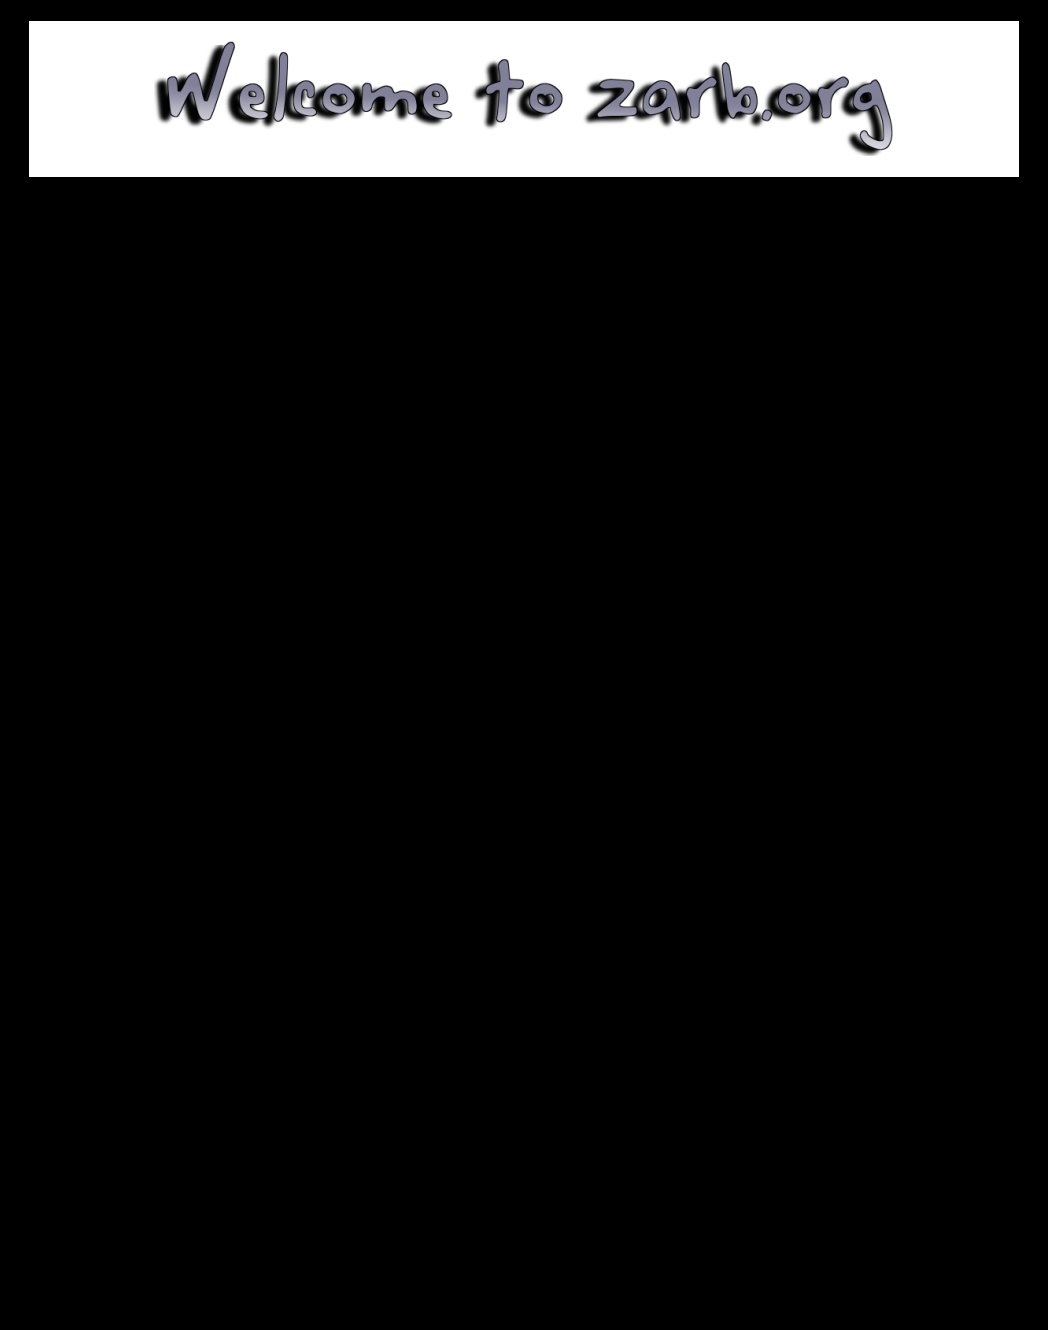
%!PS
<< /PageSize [1048 1330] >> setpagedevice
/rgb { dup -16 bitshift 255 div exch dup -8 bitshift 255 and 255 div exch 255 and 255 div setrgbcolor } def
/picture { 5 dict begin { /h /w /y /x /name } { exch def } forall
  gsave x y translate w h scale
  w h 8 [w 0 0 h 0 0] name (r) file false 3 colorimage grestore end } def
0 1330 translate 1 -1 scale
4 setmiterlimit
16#000000 rgb
0 0 1048 1330 rectfill
16#FFFFFF rgb
29 21 990 156 rectfill
(pic1.raw) 154 41 739 115 picture
showpage
